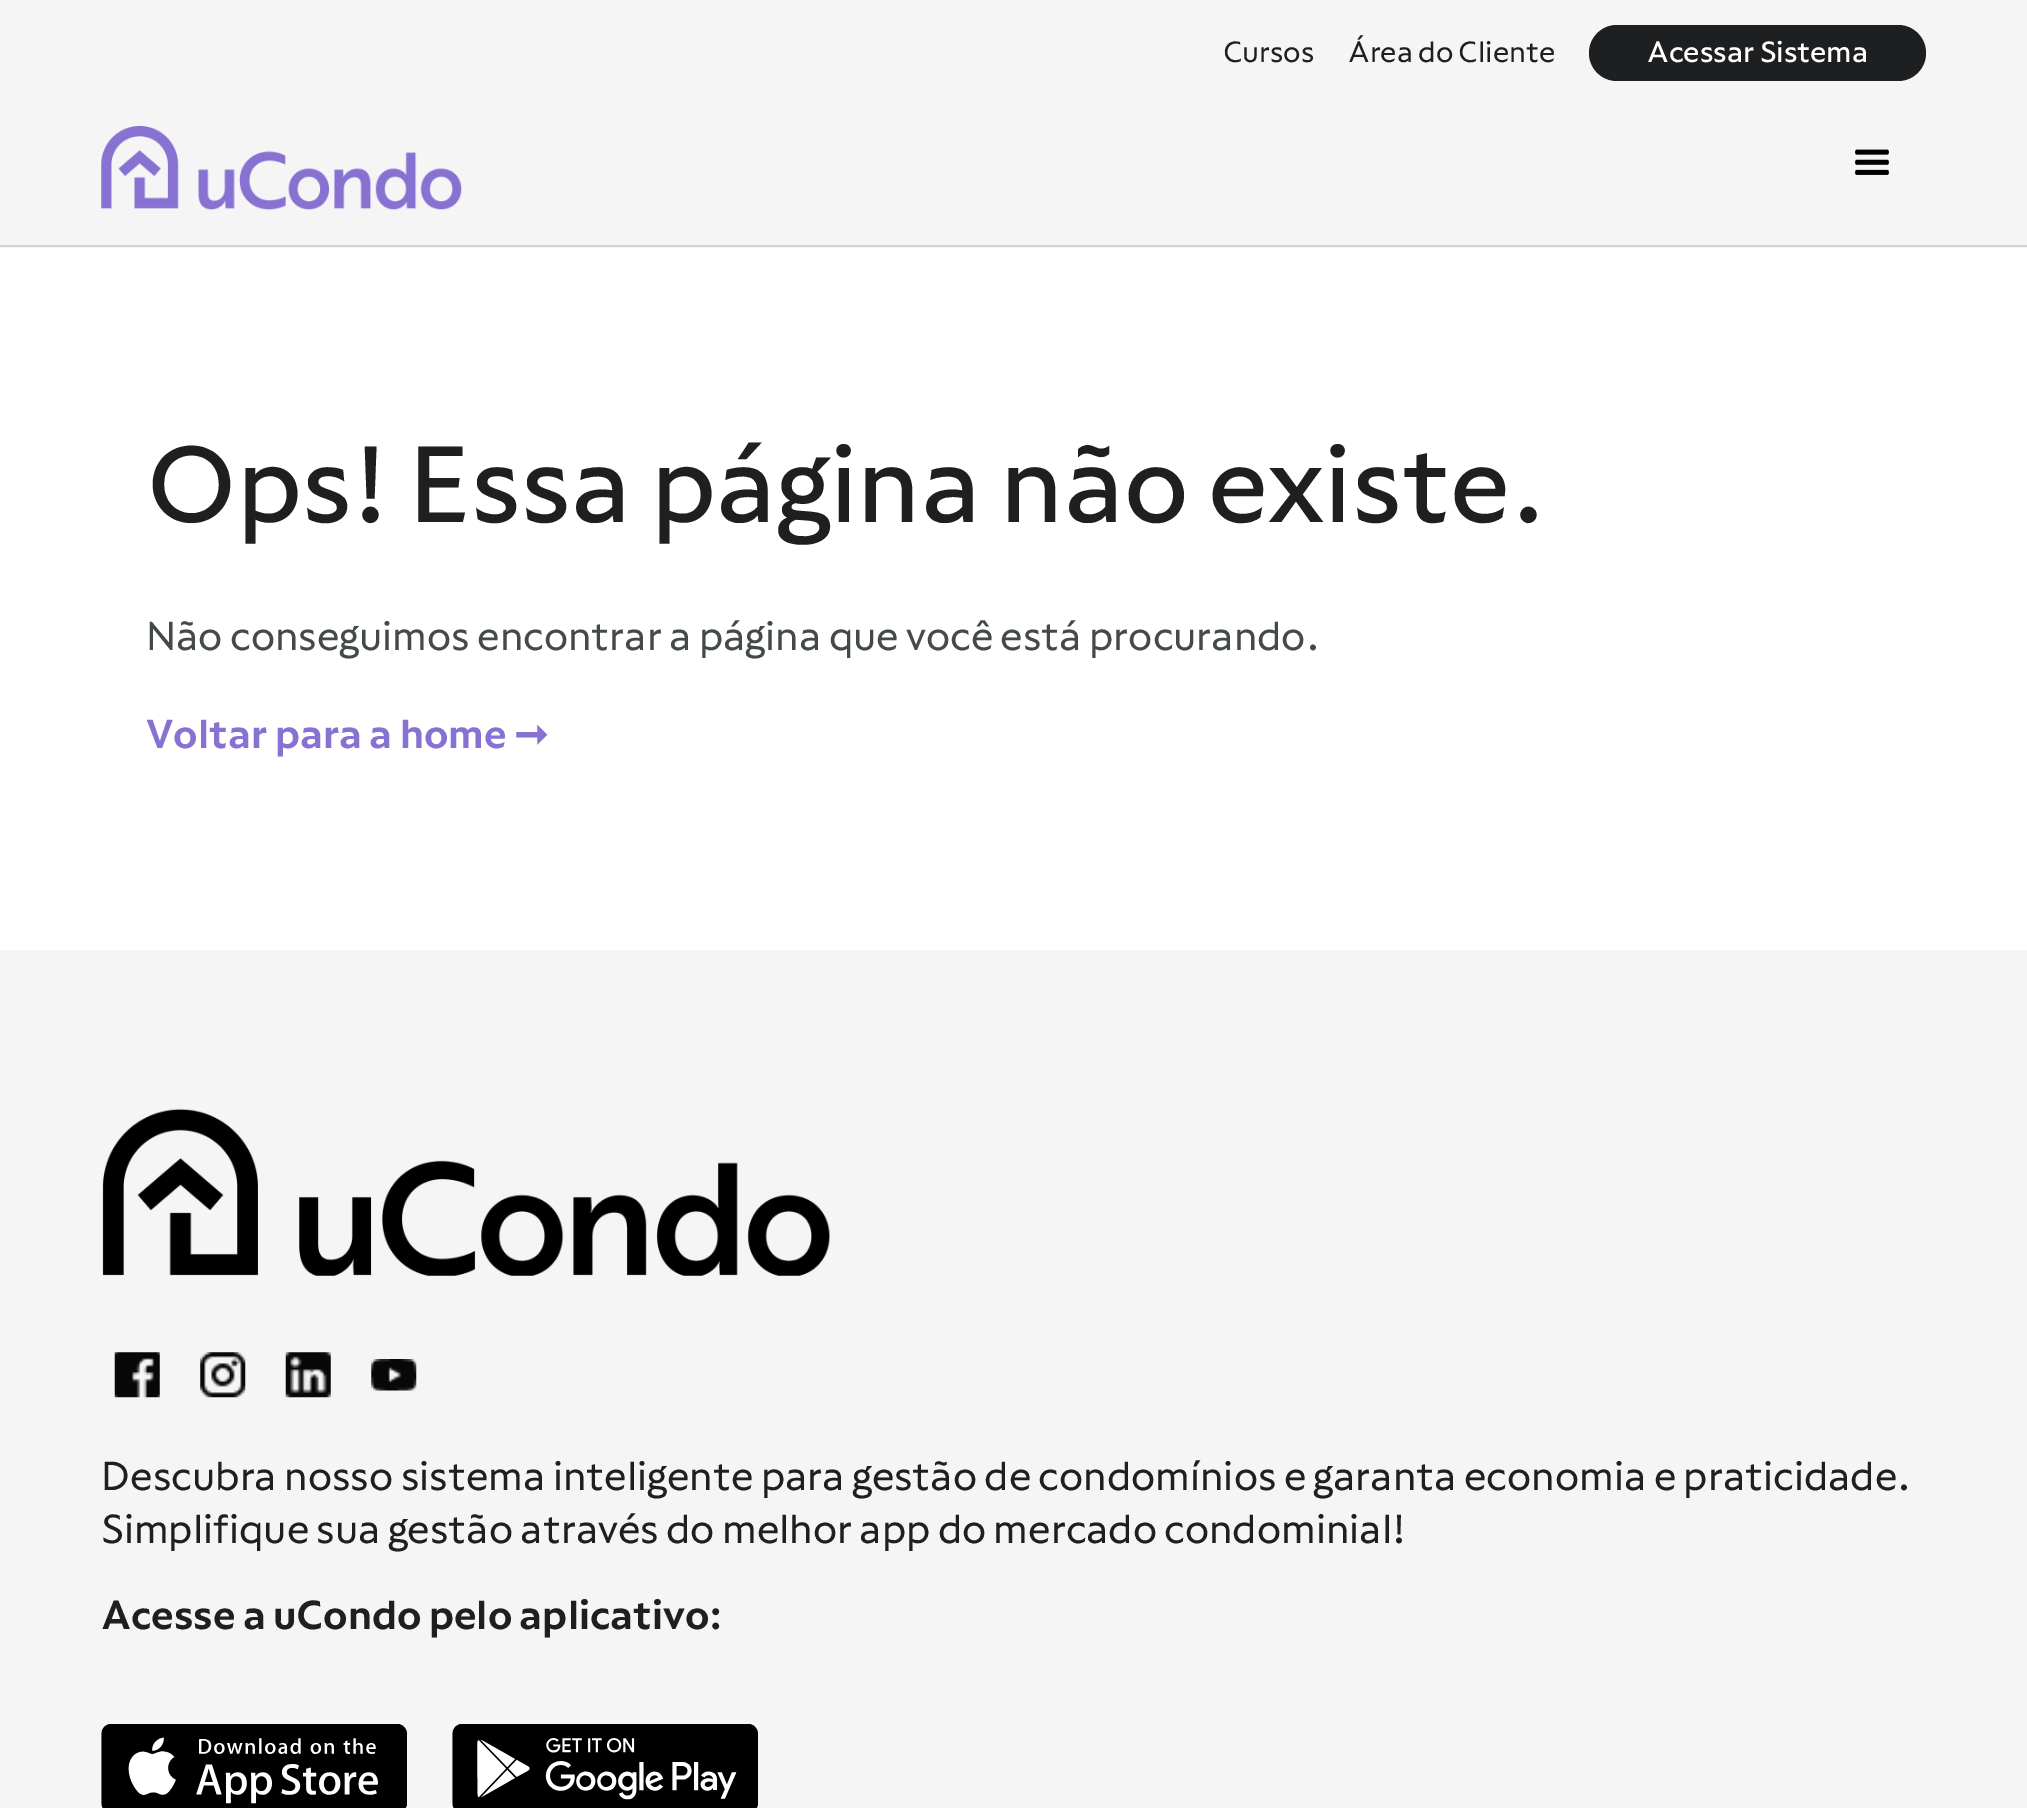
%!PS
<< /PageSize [2027 1808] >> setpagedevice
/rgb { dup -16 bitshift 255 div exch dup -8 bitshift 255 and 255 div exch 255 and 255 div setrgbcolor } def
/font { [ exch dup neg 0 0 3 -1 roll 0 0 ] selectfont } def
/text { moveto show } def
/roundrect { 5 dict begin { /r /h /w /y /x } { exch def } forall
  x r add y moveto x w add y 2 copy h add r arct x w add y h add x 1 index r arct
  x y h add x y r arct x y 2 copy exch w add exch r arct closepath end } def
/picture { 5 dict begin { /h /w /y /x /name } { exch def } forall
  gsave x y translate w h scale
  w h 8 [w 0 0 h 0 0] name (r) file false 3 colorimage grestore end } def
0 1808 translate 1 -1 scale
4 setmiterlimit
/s1 { /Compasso-Regular 29.25 font 16#1D1F20 rgb } def
/s2 { /Compasso-SemiBold 29.25 font 16#FFFFFF rgb } def
/s3 { /Compasso-Medium 108 font 16#1D1F20 rgb } def
/s4 { /Compasso-Regular 40.5 font 16#44494A rgb } def
/s5 { /Compasso-Bold 40.5 font 16#8771D1 rgb } def
/s6 { /DejaVuSans-Bold 40.5 font 16#8771D1 rgb } def
/s7 { /Compasso-Regular 40.5 font 16#1D1F20 rgb } def
/s8 { /Compasso-Bold 40.5 font 16#1D1F20 rgb } def
16#FFFFFF rgb
0 0 2027 1808 rectfill
16#F5F5F5 rgb
0 0 2027 248 rectfill
s1
(Cursos) 1223 62 text
(Área do Cliente) 1348 62 text
1589 25 337 56 28 roundrect fill
s2
(Acessar Sistema) 1647 62 text
16#D4D4D4 rgb
0 245 2027 2 rectfill
(pic1.raw) 101 126 361 84 picture
(pic2.raw) 1855 149 34 26 picture
s3
(Ops! Essa página não existe.) 146 522 text
s4
(Não conseguimos encontrar a página que você está procurando.) 146 650 text
s5
(Voltar para a home) 146 748 text
s6
(➞) 514 748 text
16#F5F5F5 rgb
0 950 2027 858 rectfill
(pic3.raw) 102 1108 728 168 picture
(pic4.raw) 114 1352 46 46 picture
(pic5.raw) 200 1352 46 46 picture
(pic6.raw) 285 1352 46 46 picture
(pic7.raw) 371 1359 46 32 picture
s7
(Descubra nosso sistema inteligente para gestão de condomínios e garanta economia e praticidade.) 101 1490 text
(Simplifique sua gestão através do melhor app do mercado condominial!) 101 1543 text
s8
(Acesse a uCondo pelo aplicativo:) 101 1629 text
(pic8.raw) 101 1724 306 84 picture
(pic9.raw) 452 1724 306 84 picture
showpage
